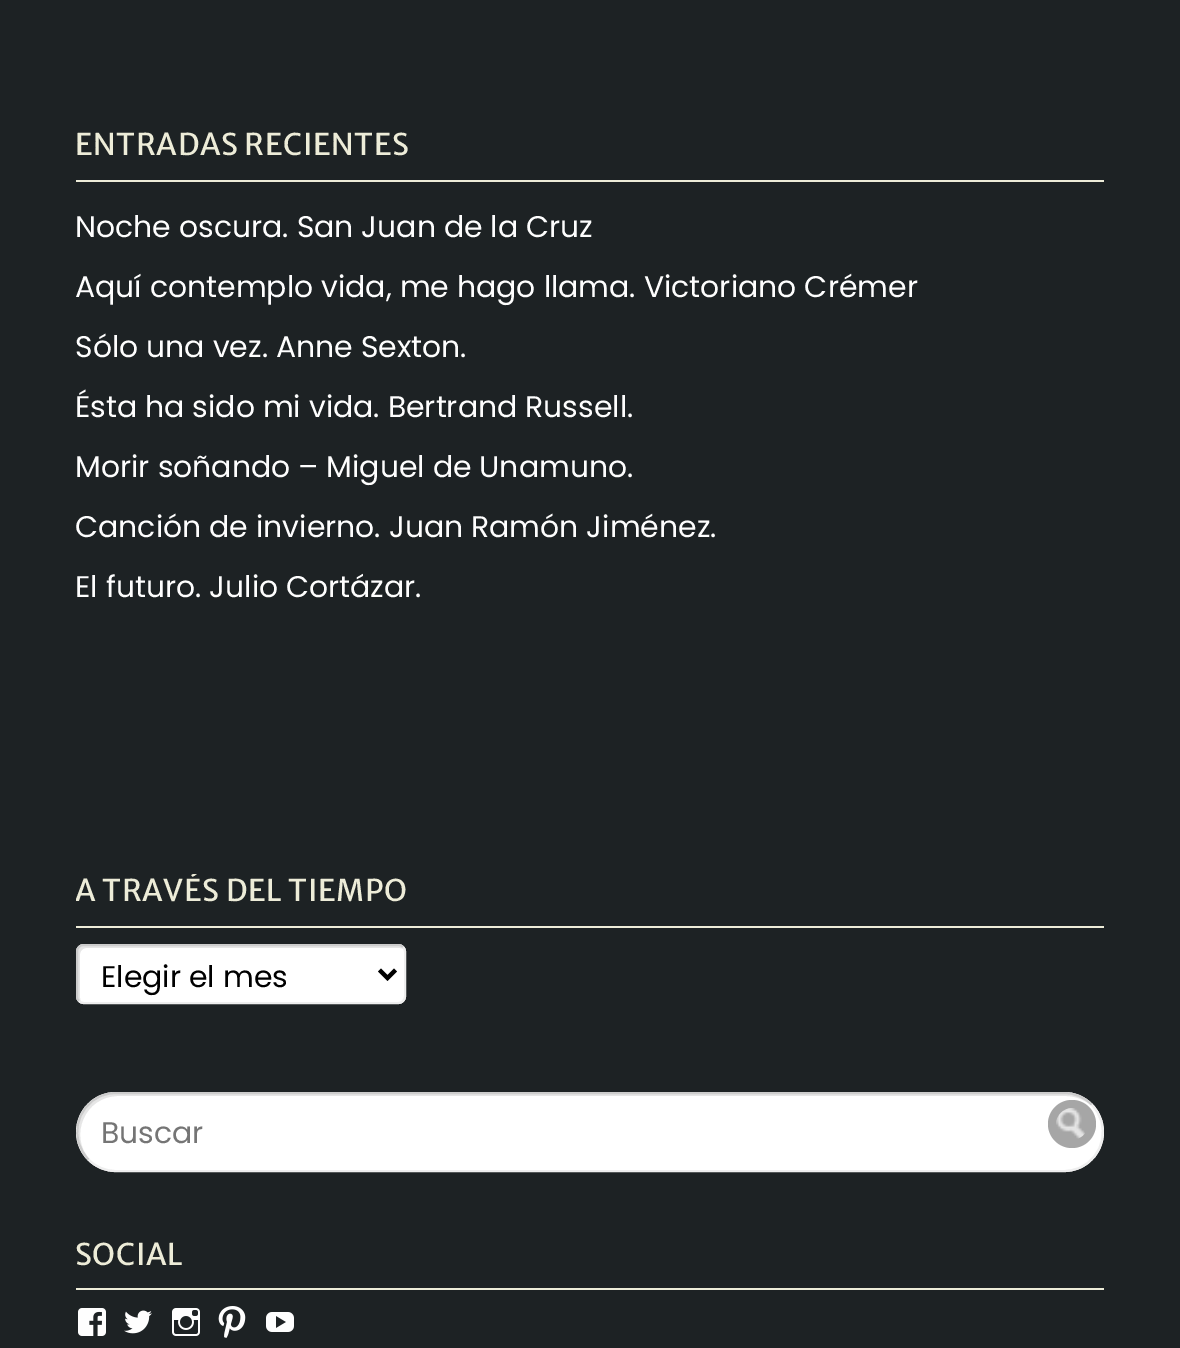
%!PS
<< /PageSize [1180 1348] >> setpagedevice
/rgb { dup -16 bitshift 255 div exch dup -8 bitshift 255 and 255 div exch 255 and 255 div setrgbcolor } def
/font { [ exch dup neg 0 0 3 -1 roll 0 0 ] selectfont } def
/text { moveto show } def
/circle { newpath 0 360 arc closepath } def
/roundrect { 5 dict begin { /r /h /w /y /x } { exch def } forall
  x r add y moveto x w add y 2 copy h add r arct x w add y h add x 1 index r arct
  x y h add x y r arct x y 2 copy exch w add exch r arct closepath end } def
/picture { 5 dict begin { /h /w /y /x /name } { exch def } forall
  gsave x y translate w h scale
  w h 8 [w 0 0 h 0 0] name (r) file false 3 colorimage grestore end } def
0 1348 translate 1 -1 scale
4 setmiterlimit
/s1 { /Poppins-Regular 29.9 font 16#FEFEFE rgb } def
/s2 { /Poppins-Regular 29.9 font 16#000000 rgb } def
/s3 { /Poppins-Regular 29.9 font 16#757575 rgb } def
16#1D2224 rgb
0 0 1180 1348 rectfill
16#EDECD8 rgb
76 180 1028 2 rectfill
/MerriweatherSans-Regular 29.9 font
75 155 moveto 0.6 0 (ENTRADAS RECIENTES) ashow
s1
(Noche oscura. San Juan de la Cruz) 75 237 text
(Aquí contemplo vida, me hago llama. Victoriano Crémer) 75 297 text
(Sólo una vez. Anne Sexton.) 75 357 text
(Ésta ha sido mi vida. Bertrand Russell.) 75 417 text
(Morir soñando – Miguel de Unamuno.) 75 477 text
(Canción de invierno. Juan Ramón Jiménez.) 75 537 text
(El futuro. Julio Cortázar.) 75 597 text
16#EDECD8 rgb
76 926 1028 2 rectfill
gsave
76 874 1028 130 rectclip
/MerriweatherSans-Regular 29.9 font
75 901 moveto 0.6 0 (A TRAVÉS DEL TIEMPO) ashow
grestore
16#FFFFFF rgb
76 944 330 60 8 roundrect fill
16#E6E6E6 rgb
86 948 moveto 400 948 lineto 401 948 402 948 403 949 curveto 402 947 400 946 398 946 curveto 84 946 lineto 81 946 78 949 78 952 curveto 78 996 lineto 78 998 79 1000 81 1001 curveto 80 1000 80 999 80 998 curveto 80 954 lineto 80 951 83 948 86 948 curveto closepath fill
16#EEEEEE rgb
2 setlinewidth
403 947 moveto 404.5 948.5 405 950 405 952 curveto 405 996 lineto 405 998 404.5 999.5 403 1001 curveto 401.5 1002.5 400 1003 398 1003 curveto 84 1003 lineto 82 1003 80.5 1002.5 79 1001 curveto stroke
16#CCCCCC rgb
79 1001 moveto 77.5 999.5 77 998 77 996 curveto 77 952 lineto 77 950 77.5 948.5 79 947 curveto 80.5 945.5 82 945 84 945 curveto 398 945 lineto 400 945 401.5 945.5 403 947 curveto stroke
16#000000 rgb
4 setlinewidth
379.5 970 moveto 387.5 978 lineto 395.5 970 lineto stroke
(Elegir el mes) 101 987 text
16#FFFFFF rgb
76 1092 1028 80 40 roundrect fill
16#E6E6E6 rgb
118 1096 moveto 1066 1096 lineto 1076 1096 1085 1100 1092 1106 curveto 1086 1099 1077 1095 1068 1094 curveto 116 1094 lineto 81 1094 65 1137 90 1160 curveto 68 1136 85 1096 118 1096 curveto closepath fill
16#EEEEEE rgb
2 setlinewidth
1091.5 1104.5 moveto 1111 1124 1104.5 1157.5 1079 1168 curveto 1074 1170 1069 1171 1064 1171 curveto 116 1171 lineto 105.5 1171 95.5 1167 88.5 1159.5 curveto stroke
16#CCCCCC rgb
88.5 1159.5 moveto 69 1140 75.5 1106.5 101 1096 curveto 106 1094 111 1093 116 1093 curveto 1064 1093 lineto 1074.5 1093 1084.5 1097 1091.5 1104.5 curveto stroke
s3
(Buscar) 101 1143 text
16#A6A6A6 rgb
1072 1124 24 circle fill
(pic1.raw) 1056 1108 29 31 picture
16#EDECD8 rgb
76 1288 1028 2 rectfill
/MerriweatherSans-Regular 29.9 font
75 1265 moveto 0.6 0 (SOCIAL) ashow
(pic2.raw) 78 1308 28 28 picture
(pic3.raw) 124 1310 28 24 picture
(pic4.raw) 172 1308 28 28 picture
(pic5.raw) 218 1306 28 32 picture
(pic6.raw) 266 1312 28 20 picture
showpage
